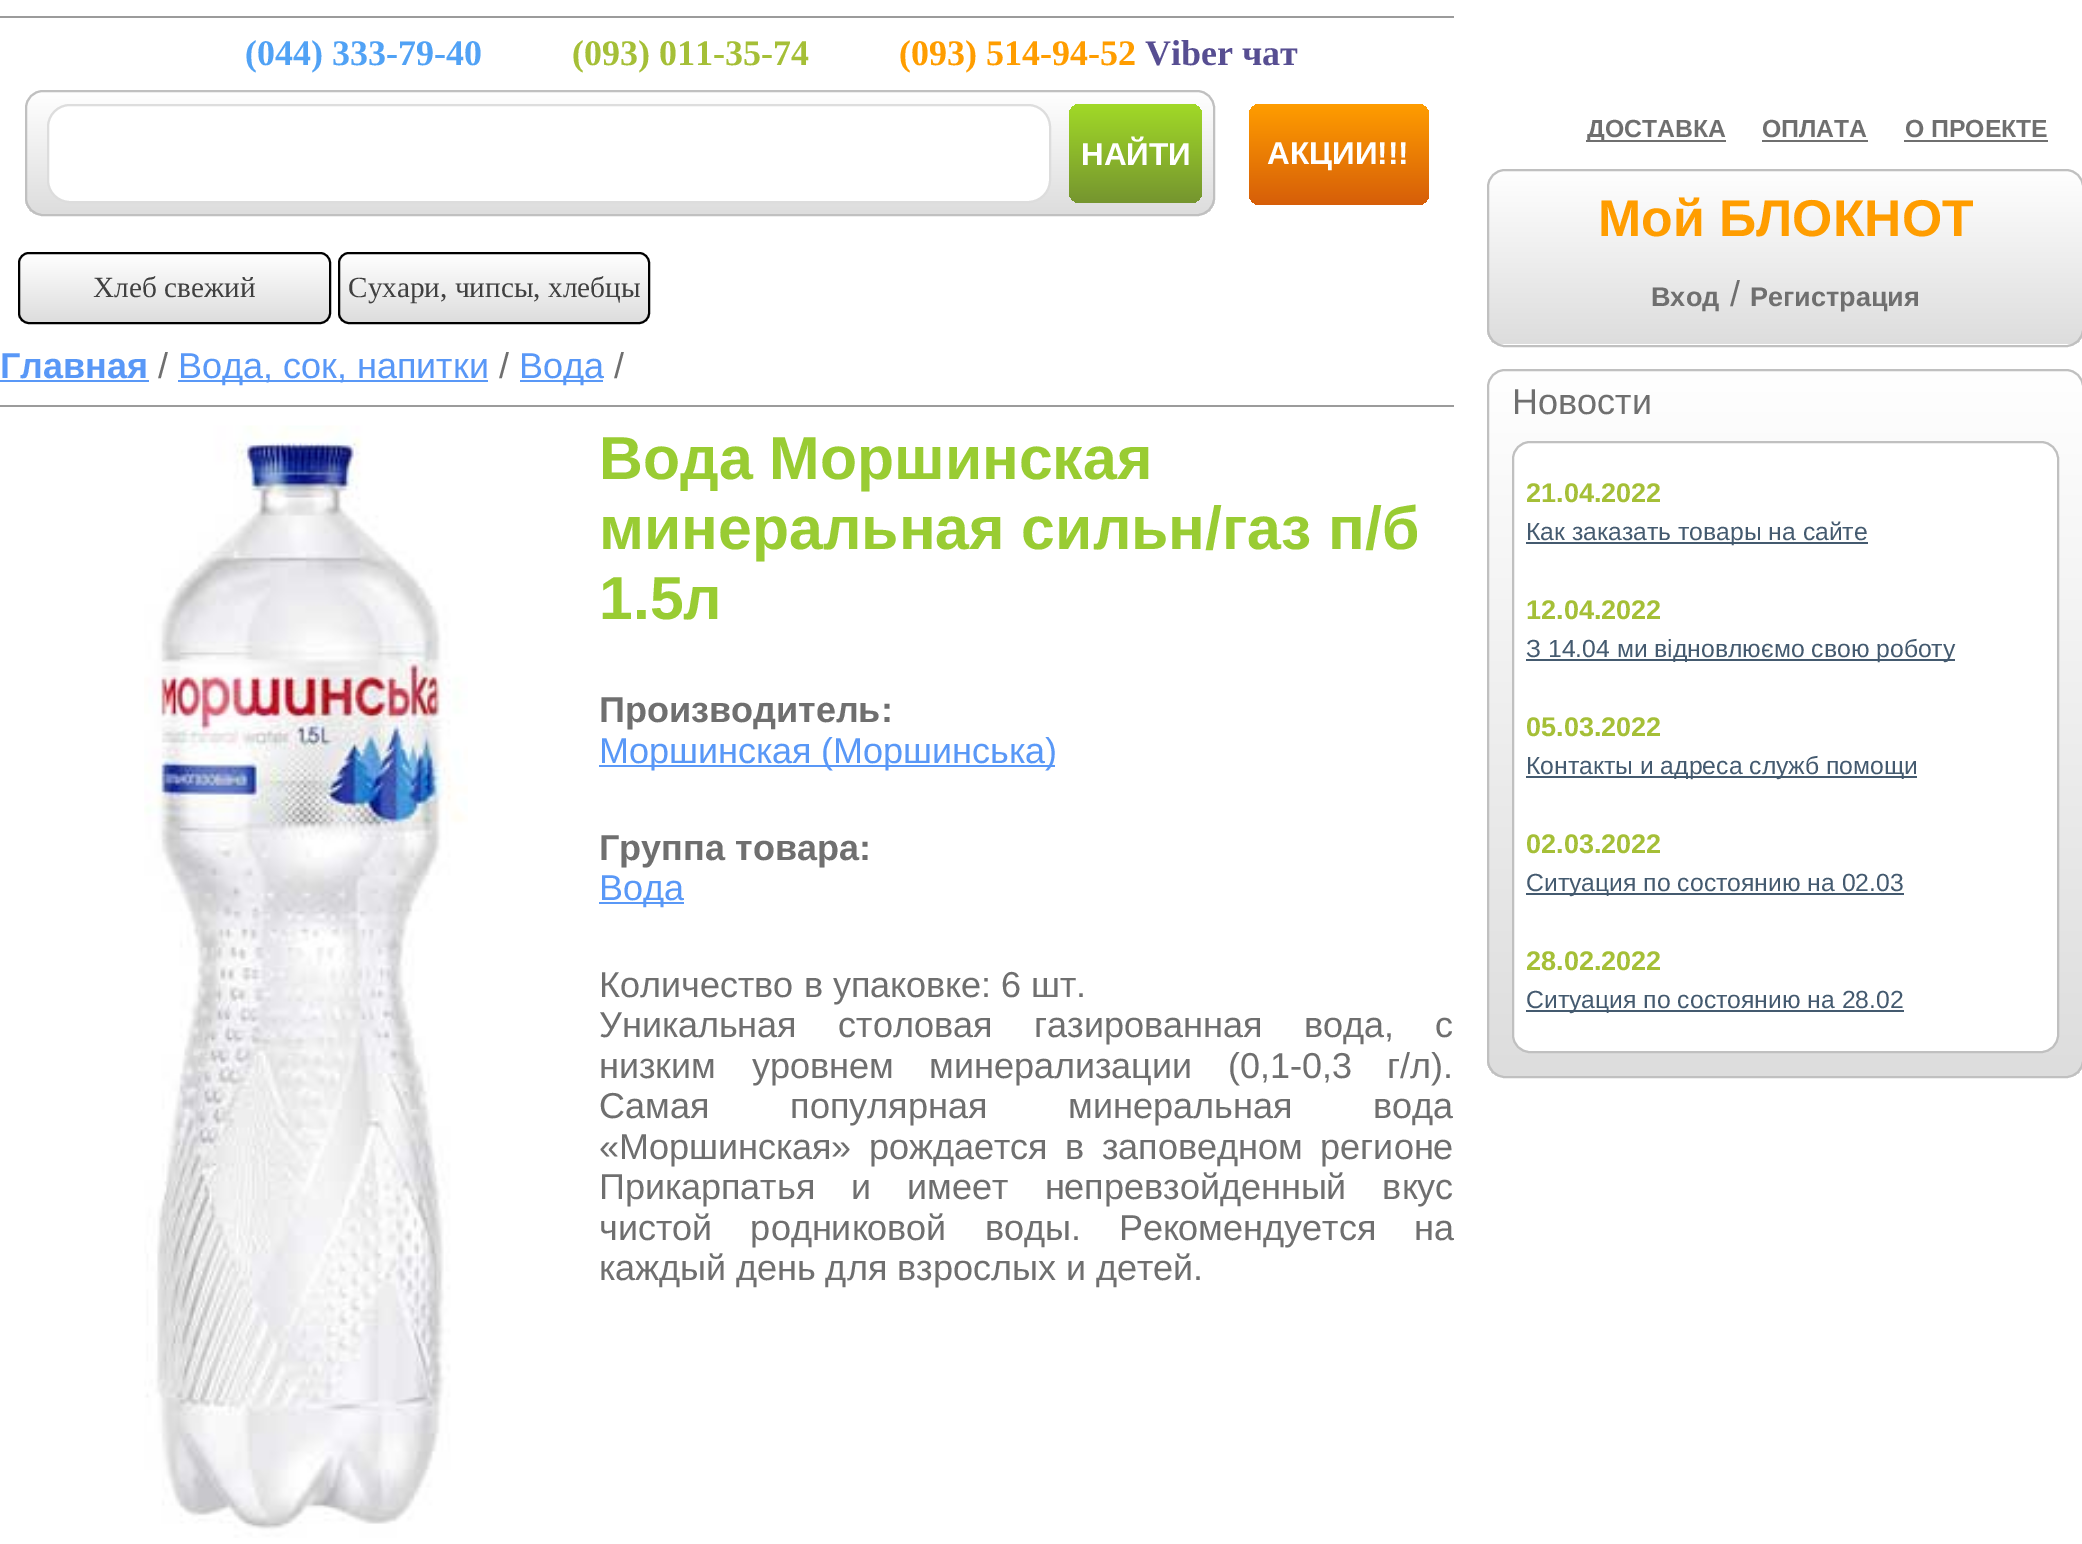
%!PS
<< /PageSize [2082 1544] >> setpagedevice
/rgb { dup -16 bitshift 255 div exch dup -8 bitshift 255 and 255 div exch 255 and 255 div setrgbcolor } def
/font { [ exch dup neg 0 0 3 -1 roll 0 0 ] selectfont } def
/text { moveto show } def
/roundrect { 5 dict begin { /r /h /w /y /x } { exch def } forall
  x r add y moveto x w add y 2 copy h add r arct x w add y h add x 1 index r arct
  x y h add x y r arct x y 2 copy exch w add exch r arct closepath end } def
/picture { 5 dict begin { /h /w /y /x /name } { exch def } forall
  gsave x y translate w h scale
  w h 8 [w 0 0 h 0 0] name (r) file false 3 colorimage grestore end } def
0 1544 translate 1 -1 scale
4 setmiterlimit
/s1 { /LiberationSerif-Bold 36 font 16#51A2F5 rgb } def
/s2 { /LiberationSerif-Bold 36 font 16#A5BF37 rgb } def
/s3 { /LiberationSerif-Bold 36 font 16#FF9D00 rgb } def
/s4 { /LiberationSerif-Bold 36 font 16#574E92 rgb } def
/s5 { /LiberationSans-Bold 31.5 font 16#FFFFFF rgb } def
/s6 { /LiberationSerif-Regular 29.25 font 16#404040 rgb } def
/s7 { /LiberationSans-Bold 36 font 16#5998F7 rgb } def
/s8 { /LiberationSans-Regular 36 font 16#6F6F6F rgb } def
/s9 { /LiberationSans-Regular 36 font 16#5998F7 rgb } def
/s10 { /LiberationSans-Bold 60.75 font 16#99CC33 rgb } def
/s11 { /LiberationSans-Bold 36 font 16#6F6F6F rgb } def
/s12 { /LiberationSans-Bold 24.75 font 16#6F6F6F rgb } def
/s13 { /LiberationSans-Bold 51.75 font 16#FF9D00 rgb } def
/s14 { /LiberationSans-Bold 27 font 16#6F6F6F rgb } def
/s15 { /LiberationSans-Bold 27 font 16#A5BF37 rgb } def
/s16 { /LiberationSans-Regular 24.75 font 16#445A6F rgb } def
16#FFFFFF rgb
0 0 2082 1544 rectfill
16#9B9B9B rgb
0 16 1454 2 rectfill
s1
(\(044\) 333-79-40) 245 65 text
s2
(\(093\) 011-35-74) 572 65 text
s3
(\(093\) 514-94-52) 899 65 text
s4
(Viber чат) 1145 65 text
gsave
25 90 1190 126 18 roundrect clip newpath
gsave 25 92 moveto 1215 92 lineto 1215 214 lineto 25 214 lineto closepath clip newpath
<< /ShadingType 2 /ColorSpace /DeviceRGB /Coords [620 92 620 214] /Extend [true true] /Function << /FunctionType 2 /Domain [0 1] /C0 [1 1 1] /C1 [0.867 0.867 0.867] /N 1 >> >> shfill grestore
grestore
16#C0C0C0 rgb
2 setlinewidth
26 91 1188 124 17 roundrect stroke
16#FFFFFF rgb
48 105 1002 97 22 roundrect gsave fill grestore
16#DDDDDD rgb
stroke
gsave 1069 104 133 99 11 roundrect clip newpath
<< /ShadingType 2 /ColorSpace /DeviceRGB /Coords [1135 104 1135 203] /Extend [true true] /Function << /FunctionType 2 /Domain [0 1] /C0 [0.631 0.851 0.153] /C1 [0.459 0.584 0.184] /N 1 >> >> shfill grestore
s5
(НАЙТИ) 1081 165 text
gsave 1249 104 180 101 11 roundrect clip newpath
<< /ShadingType 2 /ColorSpace /DeviceRGB /Coords [1339 104 1339 205] /Extend [true true] /Function << /FunctionType 2 /Domain [0 1] /C0 [1 0.616 0] /C1 [0.839 0.369 0.035] /N 1 >> >> shfill grestore
(АКЦИИ!!!) 1267 164 text
gsave
18 252 313 72 11 roundrect clip newpath
gsave 18 254 moveto 331 254 lineto 331 322 lineto 18 322 lineto closepath clip newpath
<< /ShadingType 2 /ColorSpace /DeviceRGB /Coords [174 254 174 322] /Extend [true true] /Function << /FunctionType 2 /Domain [0 1] /C0 [1 1 1] /C1 [0.867 0.867 0.867] /N 1 >> >> shfill grestore
grestore
16#000000 rgb
19 253 311 70 10 roundrect stroke
s6
(Хлеб свежий) 93 297 text
gsave
338 252 312 72 11 roundrect clip newpath
gsave 338 254 moveto 650 254 lineto 650 322 lineto 338 322 lineto closepath clip newpath
<< /ShadingType 2 /ColorSpace /DeviceRGB /Coords [494 254 494 322] /Extend [true true] /Function << /FunctionType 2 /Domain [0 1] /C0 [1 1 1] /C1 [0.867 0.867 0.867] /N 1 >> >> shfill grestore
grestore
16#000000 rgb
339 253 310 70 10 roundrect stroke
s6
(Сухари, чипсы, хлебцы) 348 297 text
s7
(Главная) 0 378 text
0 380 149 2 rectfill
s8
(/) 158 378 text
16#5998F7 rgb
178 380 310 2 rectfill
(Вода, сок, напитки) 178 378 text
s8
(/) 499 378 text
16#5998F7 rgb
520 380 83 2 rectfill
(Вода) 519 378 text
s8
(/) 614 378 text
16#9B9B9B rgb
0 405 1454 2 rectfill
(pic1.raw) 144 425 324 1113 picture
s10
(Вода Моршинская) 599 479 text
(минеральная сильн/газ п/б) 599 549 text
(1.5л) 599 619 text
s11
(Производитель:) 599 722 text
16#5998F7 rgb
599 765 456 2 rectfill
s9
(Моршинская \(Моршинська\)) 599 763 text
s11
(Группа товара:) 599 860 text
16#5998F7 rgb
599 902 85 2 rectfill
s9
(Вода) 599 900 text
s8
(Количество в упаковке: 6 шт.) 599 997 text
599 1037 moveto 31.5 0 32 (Уникальная столовая газированная вода, с) widthshow
599 1078 moveto 25.5 0 32 (низким уровнем минерализации \(0,1-0,3 г/л\).) widthshow
599 1118 moveto 71 0 32 (Самая популярная минеральная вода) widthshow
599 1159 moveto 7.5 0 32 («Моршинская» рождается в заповедном регионе) widthshow
599 1199 moveto 26 0 32 (Прикарпатья и имеет непревзойденный вкус) widthshow
599 1240 moveto 28 0 32 (чистой родниковой воды. Рекомендуется на) widthshow
(каждый день для взрослых и детей.) 599 1280 text
1586 140 140 2 rectfill
s12
(ДОСТАВКА) 1587 137 text
(ОПЛАТА) 1762 137 text
1762 140 106 2 rectfill
(О ПРОЕКТЕ) 1905 137 text
1904 140 144 2 rectfill
gsave
1487 169 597 178 18 roundrect clip newpath
gsave 1487 171 moveto 2082 171 lineto 2082 344 lineto 1487 344 lineto closepath clip newpath
<< /ShadingType 2 /ColorSpace /DeviceRGB /Coords [1785 171 1785 344] /Extend [true true] /Function << /FunctionType 2 /Domain [0 1] /C0 [1 1 1] /C1 [0.867 0.867 0.867] /N 1 >> >> shfill grestore
grestore
16#C0C0C0 rgb
1488 170 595 176 17 roundrect stroke
s13
(Мой БЛОКНОТ) 1598 236 text
s14
(Вход) 1651 306 text
s8
(/) 1730 306 text
s14
(Регистрация) 1750 306 text
gsave
1487 369 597 709 18 roundrect clip newpath
gsave 1487 371 moveto 2082 371 lineto 2082 1076 lineto 1487 1076 lineto closepath clip newpath
<< /ShadingType 2 /ColorSpace /DeviceRGB /Coords [1785 371 1785 1076] /Extend [true true] /Function << /FunctionType 2 /Domain [0 1] /C0 [1 1 1] /C1 [0.867 0.867 0.867] /N 1 >> >> shfill grestore
grestore
16#C0C0C0 rgb
1488 370 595 707 17 roundrect stroke
s8
(Новости) 1512 414 text
16#FFFFFF rgb
1513 442 545 610 17 roundrect gsave fill grestore
16#C0C0C0 rgb
stroke
s15
(21.04.2022) 1526 502 text
16#445A6F rgb
1526 542 342 2 rectfill
s16
(Как заказать товары на сайте) 1526 540 text
s15
(12.04.2022) 1526 619 text
16#445A6F rgb
1526 659 429 2 rectfill
s16
(З 14.04 ми відновлюємо свою роботу) 1526 657 text
s15
(05.03.2022) 1526 736 text
16#445A6F rgb
1526 776 391 2 rectfill
s16
(Контакты и адреса служб помощи) 1526 774 text
s15
(02.03.2022) 1526 853 text
16#445A6F rgb
1526 893 378 2 rectfill
s16
(Ситуация по состоянию на 02.03) 1526 891 text
s15
(28.02.2022) 1526 970 text
16#445A6F rgb
1526 1010 378 2 rectfill
s16
(Ситуация по состоянию на 28.02) 1526 1008 text
showpage
